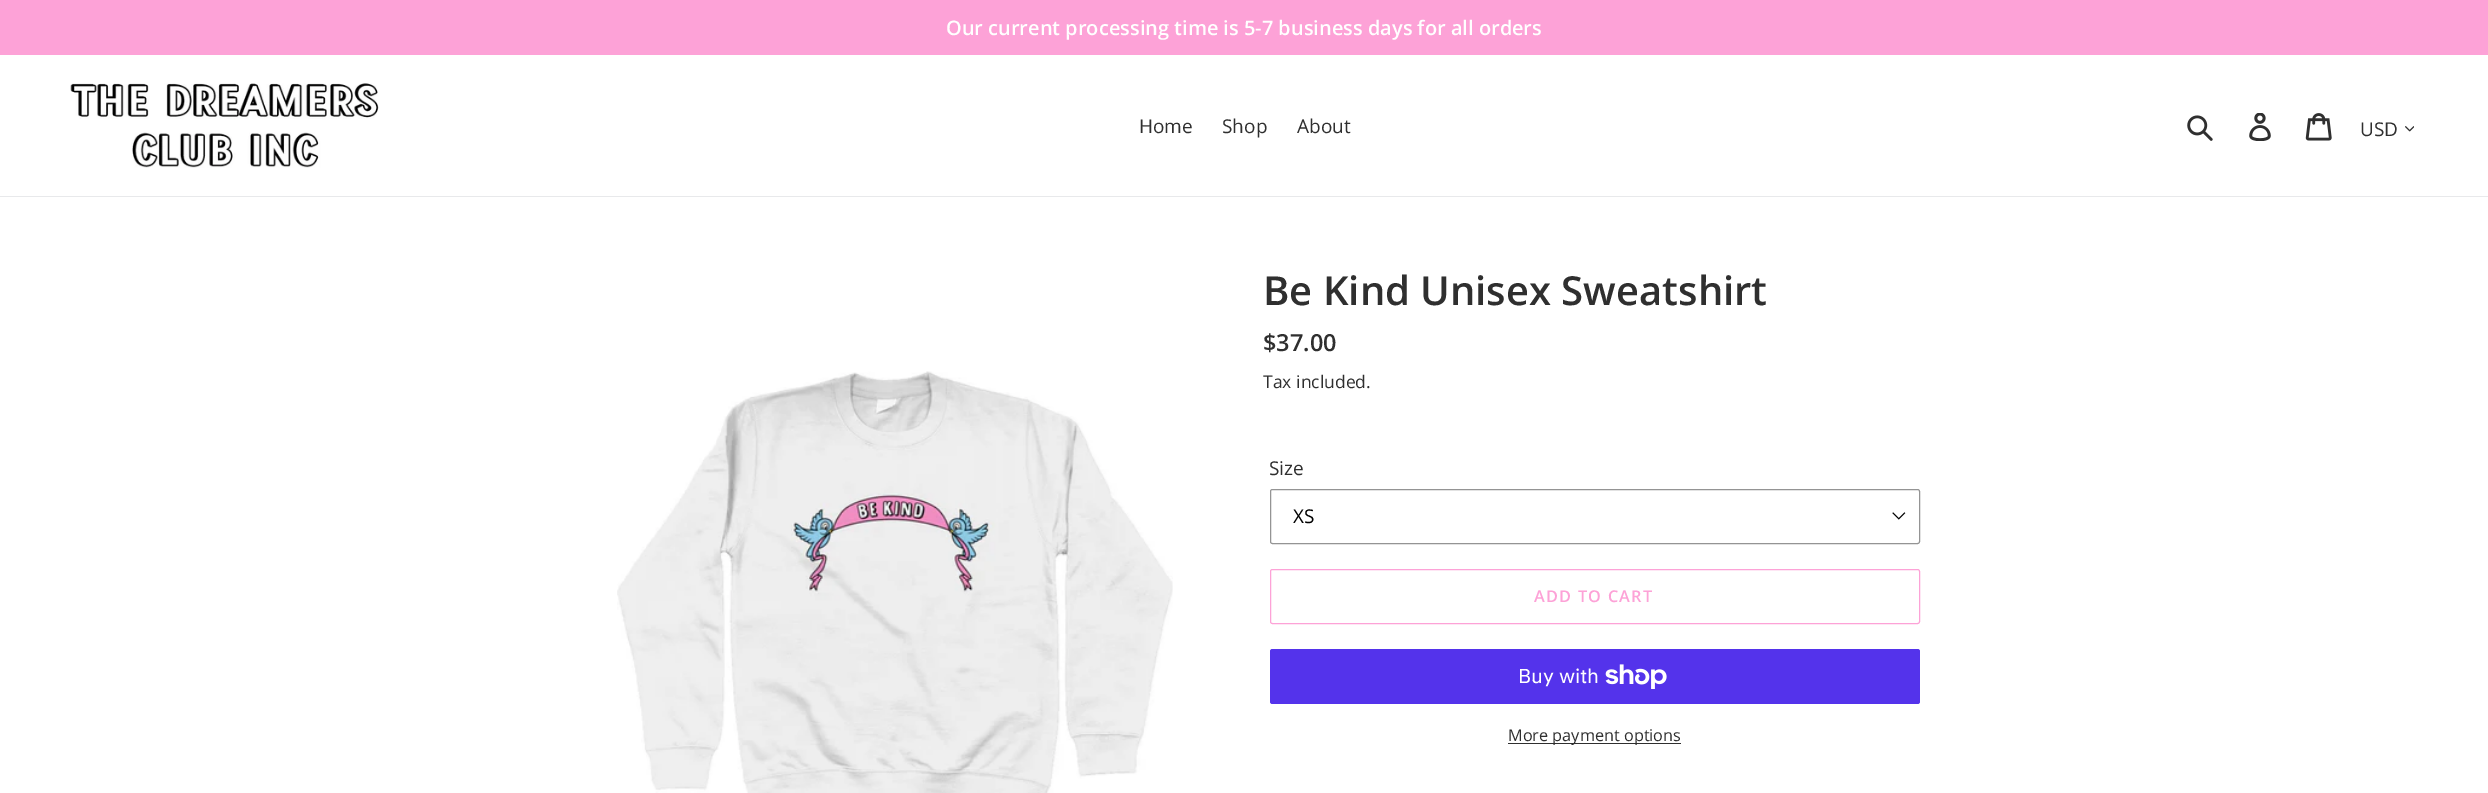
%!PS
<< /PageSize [2488 793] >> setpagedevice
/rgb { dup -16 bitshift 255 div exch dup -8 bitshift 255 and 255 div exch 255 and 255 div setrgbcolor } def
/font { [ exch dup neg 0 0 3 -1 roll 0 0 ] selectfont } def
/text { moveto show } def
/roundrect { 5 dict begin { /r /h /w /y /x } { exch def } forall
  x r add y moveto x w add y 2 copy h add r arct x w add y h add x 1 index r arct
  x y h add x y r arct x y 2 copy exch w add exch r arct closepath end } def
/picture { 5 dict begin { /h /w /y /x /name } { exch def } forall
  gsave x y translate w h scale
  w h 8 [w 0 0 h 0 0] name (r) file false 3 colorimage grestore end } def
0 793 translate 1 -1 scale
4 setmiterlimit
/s1 { /OpenSans-SemiBold 20 font 16#FFFFFF rgb } def
/s2 { /OpenSans-Regular 19 font 16#2F2F2F rgb } def
/s3 { /OpenSans-SemiBold 40 font 16#2F2F2F rgb } def
/s4 { /OpenSans-SemiBold 23.5 font 16#2F2F2F rgb } def
/s5 { /OpenSans-Regular 17.5 font 16#2F2F2F rgb } def
/s6 { /OpenSans-Regular 19 font 16#000000 rgb } def
/s7 { /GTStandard-Regular 20 font 16#FFFFFF rgb } def
/s8 { /OpenSans-Regular 16.25 font 16#2F2F2F rgb } def
16#FFFFFF rgb
0 0 2488 793 rectfill
16#FDA2D7 rgb
0 0 2488 55 rectfill
s1
(Our current processing time is 5-7 business days for all orders) 946 35 text
16#E8E9EB rgb
0 196 2488 1 rectfill
(pic1.raw) 70 83 309 85 picture
s2
(Home) 1139 133 text
(Shop) 1222 133 text
(About) 1297 133 text
(pic2.raw) 2187 115 26 26 picture
(pic3.raw) 2249 113 22 28 picture
(pic4.raw) 2305 113 27 28 picture
(USD) 2360 136 text
(pic5.raw) 2405 126 9 6 picture
(pic6.raw) 617 371 556 422 picture
s3
(Be Kind Unisex Sweatshirt) 1263 305 text
s4
($37.00) 1263 351 text
s5
(Tax included.) 1263 388 text
s2
(Size) 1269 475 text
(pic7.raw) 1892 512 14 8 picture
16#949494 rgb
1270.5 489.5 649 54 2 roundrect stroke
s6
(XS) 1293 523 text
16#FDA2D7 rgb
1270.5 569.5 649 54 2 roundrect stroke
/OpenSans-SemiBold 16.25 font
1534 602 moveto 1.25 0 (ADD TO CART) ashow
16#5433EB rgb
1270 649 650 55 2.5 roundrect fill
s7
(Buy with) 1518 683 text
(pic8.raw) 1605 664 62 25 picture
16#2F2F2F rgb
1508 743 173 1 rectfill
s8
(More payment options) 1508 741 text
showpage
